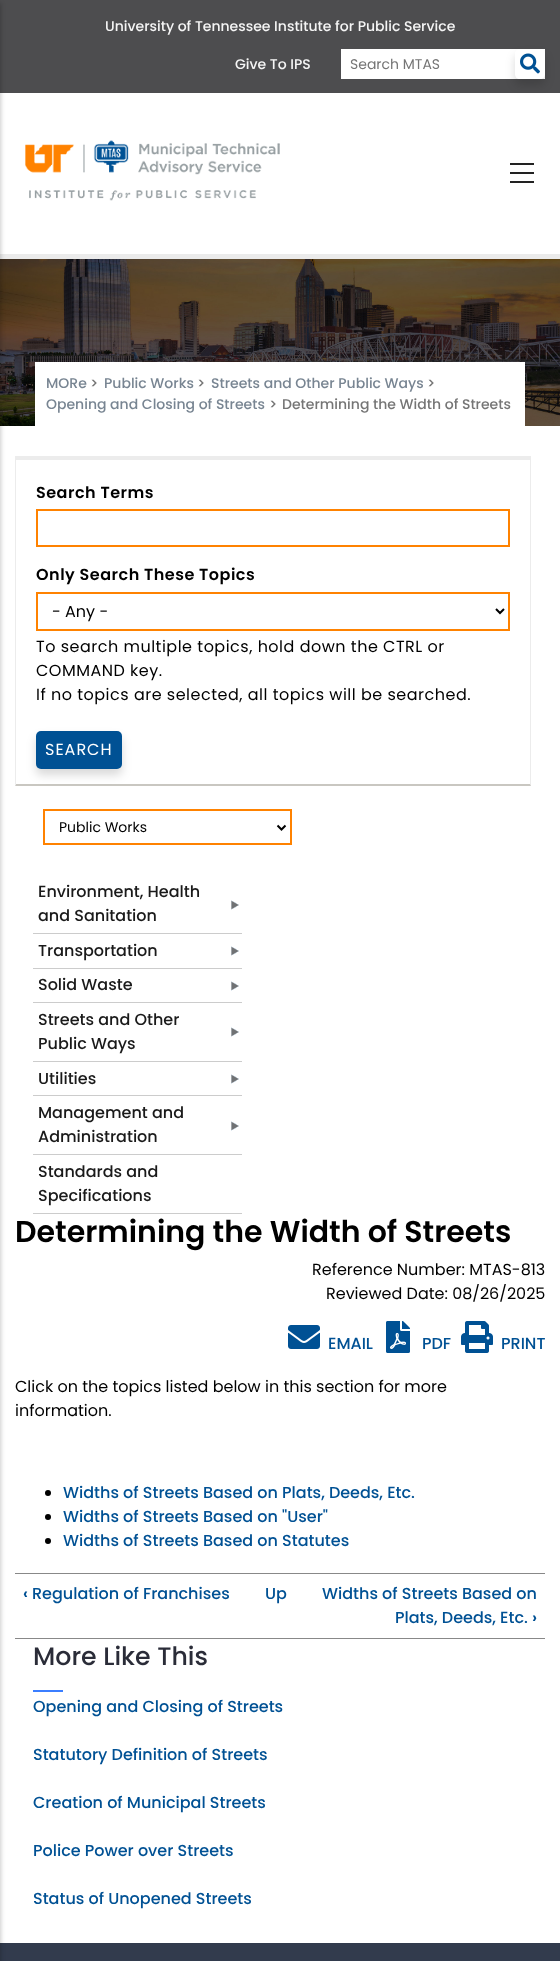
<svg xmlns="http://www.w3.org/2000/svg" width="560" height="1961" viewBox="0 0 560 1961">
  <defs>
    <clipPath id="clip1"><path d="M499 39H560V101H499ZM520 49H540C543 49 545 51 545 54V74C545 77 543 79 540 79H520C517 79 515 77 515 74V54C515 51 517 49 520 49Z" clip-rule="evenodd"/></clipPath>
  </defs>
  <rect width="100%" height="100%" fill="rgb(255,255,255)"/>
  <rect x="0" y="254" width="560" height="5" fill="rgb(235,235,235)"/>
  <rect x="0" y="0" width="560" height="93" fill="rgb(77,77,79)"/>
  <image x="0" y="259" width="560" height="167" href="pic3.png"/>
  <rect x="0" y="1943" width="560" height="18" fill="rgb(50,59,77)"/>
  <rect x="-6" y="3" width="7" height="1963" fill="rgba(0,0,0,0.2)" filter="blur(2px)"/>
  <rect x="510" y="163" width="24" height="2" fill="rgb(34,34,34)"/>
  <rect x="510" y="172" width="24" height="2" fill="rgb(34,34,34)"/>
  <rect x="510" y="181" width="24" height="2" fill="rgb(34,34,34)"/>
  <image x="25" y="140" width="255" height="61" href="pic1.png"/>
  <g font-family="Poppins" font-size="14" font-weight="500" fill="rgb(245,245,245)">
    <text x="105" y="31">University of Tennessee Institute for Public Service</text>
    <text x="235" y="69">Give To IPS</text>
  </g>
  <rect x="341" y="49" width="204" height="30" fill="rgb(255,255,255)"/>
  <text x="350" y="69" font-family="Poppins" font-size="14" fill="rgb(117,117,117)">Search MTAS</text>
  <image x="520" y="53" width="20" height="21" href="pic2.png"/>
  <g clip-path="url(#clip1)">
    <rect x="515" y="55" width="30" height="30" rx="5" fill="rgba(0,0,0,0.15)" filter="blur(5px)"/>
  </g>
  <rect x="35" y="362" width="490" height="64" fill="rgb(255,255,255)"/>
  <text x="46" y="388" font-family="Poppins" font-size="14" font-weight="500" fill="rgb(120,133,146)">MORe</text>
  <text x="90" y="388" font-family="Poppins" font-size="14" font-weight="500" fill="rgb(117,117,117)">&gt;</text>
  <text x="104" y="388" font-family="Poppins" font-size="14" font-weight="500" fill="rgb(120,133,146)">Public Works</text>
  <text x="197" y="388" font-family="Poppins" font-size="14" font-weight="500" fill="rgb(117,117,117)">&gt;</text>
  <text x="211" y="388" font-family="Poppins" font-size="14" font-weight="500" fill="rgb(120,133,146)">Streets and Other Public Ways</text>
  <text x="427" y="388" font-family="Poppins" font-size="14" font-weight="500" fill="rgb(117,117,117)">&gt;</text>
  <text x="46" y="409" font-family="Poppins" font-size="14" font-weight="500" fill="rgb(120,133,146)">Opening and Closing of Streets</text>
  <g font-family="Poppins" font-size="14" font-weight="500" fill="rgb(117,117,117)">
    <text x="269" y="409">&gt;</text>
    <text x="282" y="409">Determining the Width of Streets</text>
  </g>
  <rect x="15" y="456" width="516" height="4" fill="rgb(236,236,236)"/>
  <path d="M531 456V786L530 784V460Z" fill="rgb(236,236,236)"/>
  <path d="M531 786H15L16 784H530Z" fill="rgb(201,199,193)"/>
  <path d="M15 786V456L16 460V784Z" fill="rgb(236,236,236)"/>
  <text x="36" y="498" font-family="Poppins" font-size="16" font-weight="600" letter-spacing="0.5" fill="rgb(0,0,0)">Search Terms</text>
  <rect x="37" y="510" width="472" height="36" fill="none" stroke="rgb(255,130,0)" stroke-width="2"/>
  <text x="36" y="580" font-family="Poppins" font-size="16" font-weight="600" letter-spacing="0.5" fill="rgb(0,0,0)">Only Search These Topics</text>
  <rect x="37" y="593" width="472" height="37" fill="none" stroke="rgb(255,130,0)" stroke-width="2"/>
  <path d="M496 609L500 613L504 609" fill="none" stroke="rgb(0,0,0)" stroke-width="2"/>
  <text x="52" y="617" font-family="Poppins" font-size="16" fill="rgb(0,0,0)">- Any -</text>
  <g font-family="Poppins" font-size="16" letter-spacing="0.5" fill="rgb(0,0,0)">
    <text>
      <tspan x="36" y="652">To search multiple topics, hold down the CTRL or</tspan>
      <tspan x="36" y="676">COMMAND key.</tspan>
      <tspan x="36" y="700">If no topics are selected, all topics will be searched.</tspan>
    </text>
  </g>
  <rect x="36" y="737" width="86" height="38" rx="5" fill="rgba(0,0,0,0.15)" filter="blur(5px)"/>
  <rect x="36" y="731" width="86" height="38" rx="5" fill="rgb(0,81,148)"/>
  <text x="45" y="755" font-family="Poppins" font-size="16" letter-spacing="1" fill="rgb(255,255,255)">SEARCH</text>
  <rect x="44" y="810" width="247" height="34" fill="none" stroke="rgb(255,130,0)" stroke-width="2"/>
  <path d="M277.5 825.5L281.5 829.5L285.5 825.5" fill="none" stroke="rgb(0,0,0)" stroke-width="2"/>
  <text x="59" y="832" font-family="Poppins" font-size="14" fill="rgb(0,0,0)">Public Works</text>
  <image x="231" y="900" width="8" height="10" href="pic4.png"/>
  <rect x="33" y="933" width="209" height="1" fill="rgb(204,204,204)"/>
  <g font-family="Poppins" font-size="16" font-weight="500" fill="rgb(26,26,26)">
    <text>
      <tspan x="38" y="897">Environment, Health</tspan>
      <tspan x="38" y="921">and Sanitation</tspan>
    </text>
  </g>
  <image x="231" y="946" width="8" height="10" href="pic4.png"/>
  <rect x="33" y="968" width="209" height="1" fill="rgb(204,204,204)"/>
  <text x="38" y="956" font-family="Poppins" font-size="16" font-weight="500" fill="rgb(26,26,26)">Transportation</text>
  <image x="231" y="981" width="8" height="10" href="pic4.png"/>
  <rect x="33" y="1002" width="209" height="1" fill="rgb(204,204,204)"/>
  <text x="38" y="990" font-family="Poppins" font-size="16" font-weight="500" fill="rgb(26,26,26)">Solid Waste</text>
  <image x="231" y="1027" width="8" height="10" href="pic4.png"/>
  <rect x="33" y="1061" width="209" height="1" fill="rgb(204,204,204)"/>
  <g font-family="Poppins" font-size="16" font-weight="500" fill="rgb(26,26,26)">
    <text>
      <tspan x="38" y="1025">Streets and Other</tspan>
      <tspan x="38" y="1049">Public Ways</tspan>
    </text>
  </g>
  <image x="231" y="1074" width="8" height="10" href="pic4.png"/>
  <rect x="33" y="1095" width="209" height="1" fill="rgb(204,204,204)"/>
  <text x="38" y="1084" font-family="Poppins" font-size="16" font-weight="500" fill="rgb(26,26,26)">Utilities</text>
  <image x="231" y="1121" width="8" height="10" href="pic4.png"/>
  <rect x="33" y="1154" width="209" height="1" fill="rgb(204,204,204)"/>
  <g font-family="Poppins" font-size="16" font-weight="500" fill="rgb(26,26,26)">
    <text>
      <tspan x="38" y="1118">Management and</tspan>
      <tspan x="38" y="1142">Administration</tspan>
    </text>
  </g>
  <rect x="33" y="1213" width="209" height="1" fill="rgb(204,204,204)"/>
  <g font-family="Poppins" font-size="16" font-weight="500" fill="rgb(26,26,26)">
    <text>
      <tspan x="38" y="1177">Standards and</tspan>
      <tspan x="38" y="1201">Specifications</tspan>
    </text>
  </g>
  <text x="15" y="1242" font-family="Poppins" font-size="30" font-weight="600" fill="rgb(0,0,0)">Determining the Width of Streets</text>
  <g font-family="Poppins" font-size="16" fill="rgb(0,0,0)">
    <text x="312" y="1275">Reference Number: MTAS-813</text>
    <text x="326" y="1299">Reviewed Date: 08/26/2025</text>
  </g>
  <image x="288" y="1325" width="32" height="24" href="pic5.png"/>
  <text x="328" y="1349" font-family="Poppins" font-size="16" font-weight="500" fill="rgb(0,81,148)">EMAIL</text>
  <image x="386" y="1321" width="24" height="32" href="pic6.png"/>
  <text x="422" y="1349" font-family="Poppins" font-size="16" font-weight="500" fill="rgb(0,81,148)">PDF</text>
  <image x="461" y="1321" width="32" height="32" href="pic7.png"/>
  <text x="501" y="1349" font-family="Poppins" font-size="16" font-weight="500" fill="rgb(0,81,148)">PRINT</text>
  <g font-family="Poppins" font-size="16" fill="rgb(0,0,0)">
    <text>
      <tspan x="15" y="1392">Click on the topics listed below in this section for more</tspan>
      <tspan x="15" y="1416">information.</tspan>
    </text>
  </g>
  <circle cx="48" cy="1493" r="3" fill="rgb(0,0,0)"/>
  <text x="63" y="1498" font-family="Poppins" font-size="16" font-weight="500" fill="rgb(0,81,148)">Widths of Streets Based on Plats, Deeds, Etc.</text>
  <circle cx="48" cy="1517" r="3" fill="rgb(0,0,0)"/>
  <text x="63" y="1522" font-family="Poppins" font-size="16" font-weight="500" fill="rgb(0,81,148)">Widths of Streets Based on "User"</text>
  <circle cx="48" cy="1541" r="3" fill="rgb(0,0,0)"/>
  <text x="63" y="1546" font-family="Poppins" font-size="16" font-weight="500" fill="rgb(0,81,148)">Widths of Streets Based on Statutes</text>
  <rect x="15" y="1573" width="530" height="1" fill="rgb(136,136,136)"/>
  <rect x="15" y="1638" width="530" height="1" fill="rgb(136,136,136)"/>
  <text x="23" y="1599" font-family="Poppins" font-size="16" font-weight="600" fill="rgb(0,81,148)">‹</text>
  <g font-family="Poppins" font-size="16" font-weight="500" fill="rgb(0,81,148)">
    <text x="32" y="1599">Regulation of Franchises</text>
    <text x="265" y="1599">Up</text>
    <text x="322" y="1599">Widths of Streets Based on</text>
    <text x="395" y="1623">Plats, Deeds, Etc.</text>
  </g>
  <text x="532" y="1623" font-family="Poppins" font-size="16" font-weight="600" fill="rgb(0,81,148)">›</text>
  <text x="33" y="1665" font-family="Poppins" font-size="25.25" font-weight="500" fill="rgb(42,44,56)">More Like This</text>
  <rect x="33" y="1690" width="30" height="2" fill="rgb(59,126,255)"/>
  <g font-family="Poppins" font-size="16" font-weight="500" fill="rgb(0,81,148)">
    <text x="33" y="1712">Opening and Closing of Streets</text>
    <text x="33" y="1760">Statutory Definition of Streets</text>
    <text x="33" y="1808">Creation of Municipal Streets</text>
    <text x="33" y="1856">Police Power over Streets</text>
    <text x="33" y="1904">Status of Unopened Streets</text>
  </g>
</svg>
